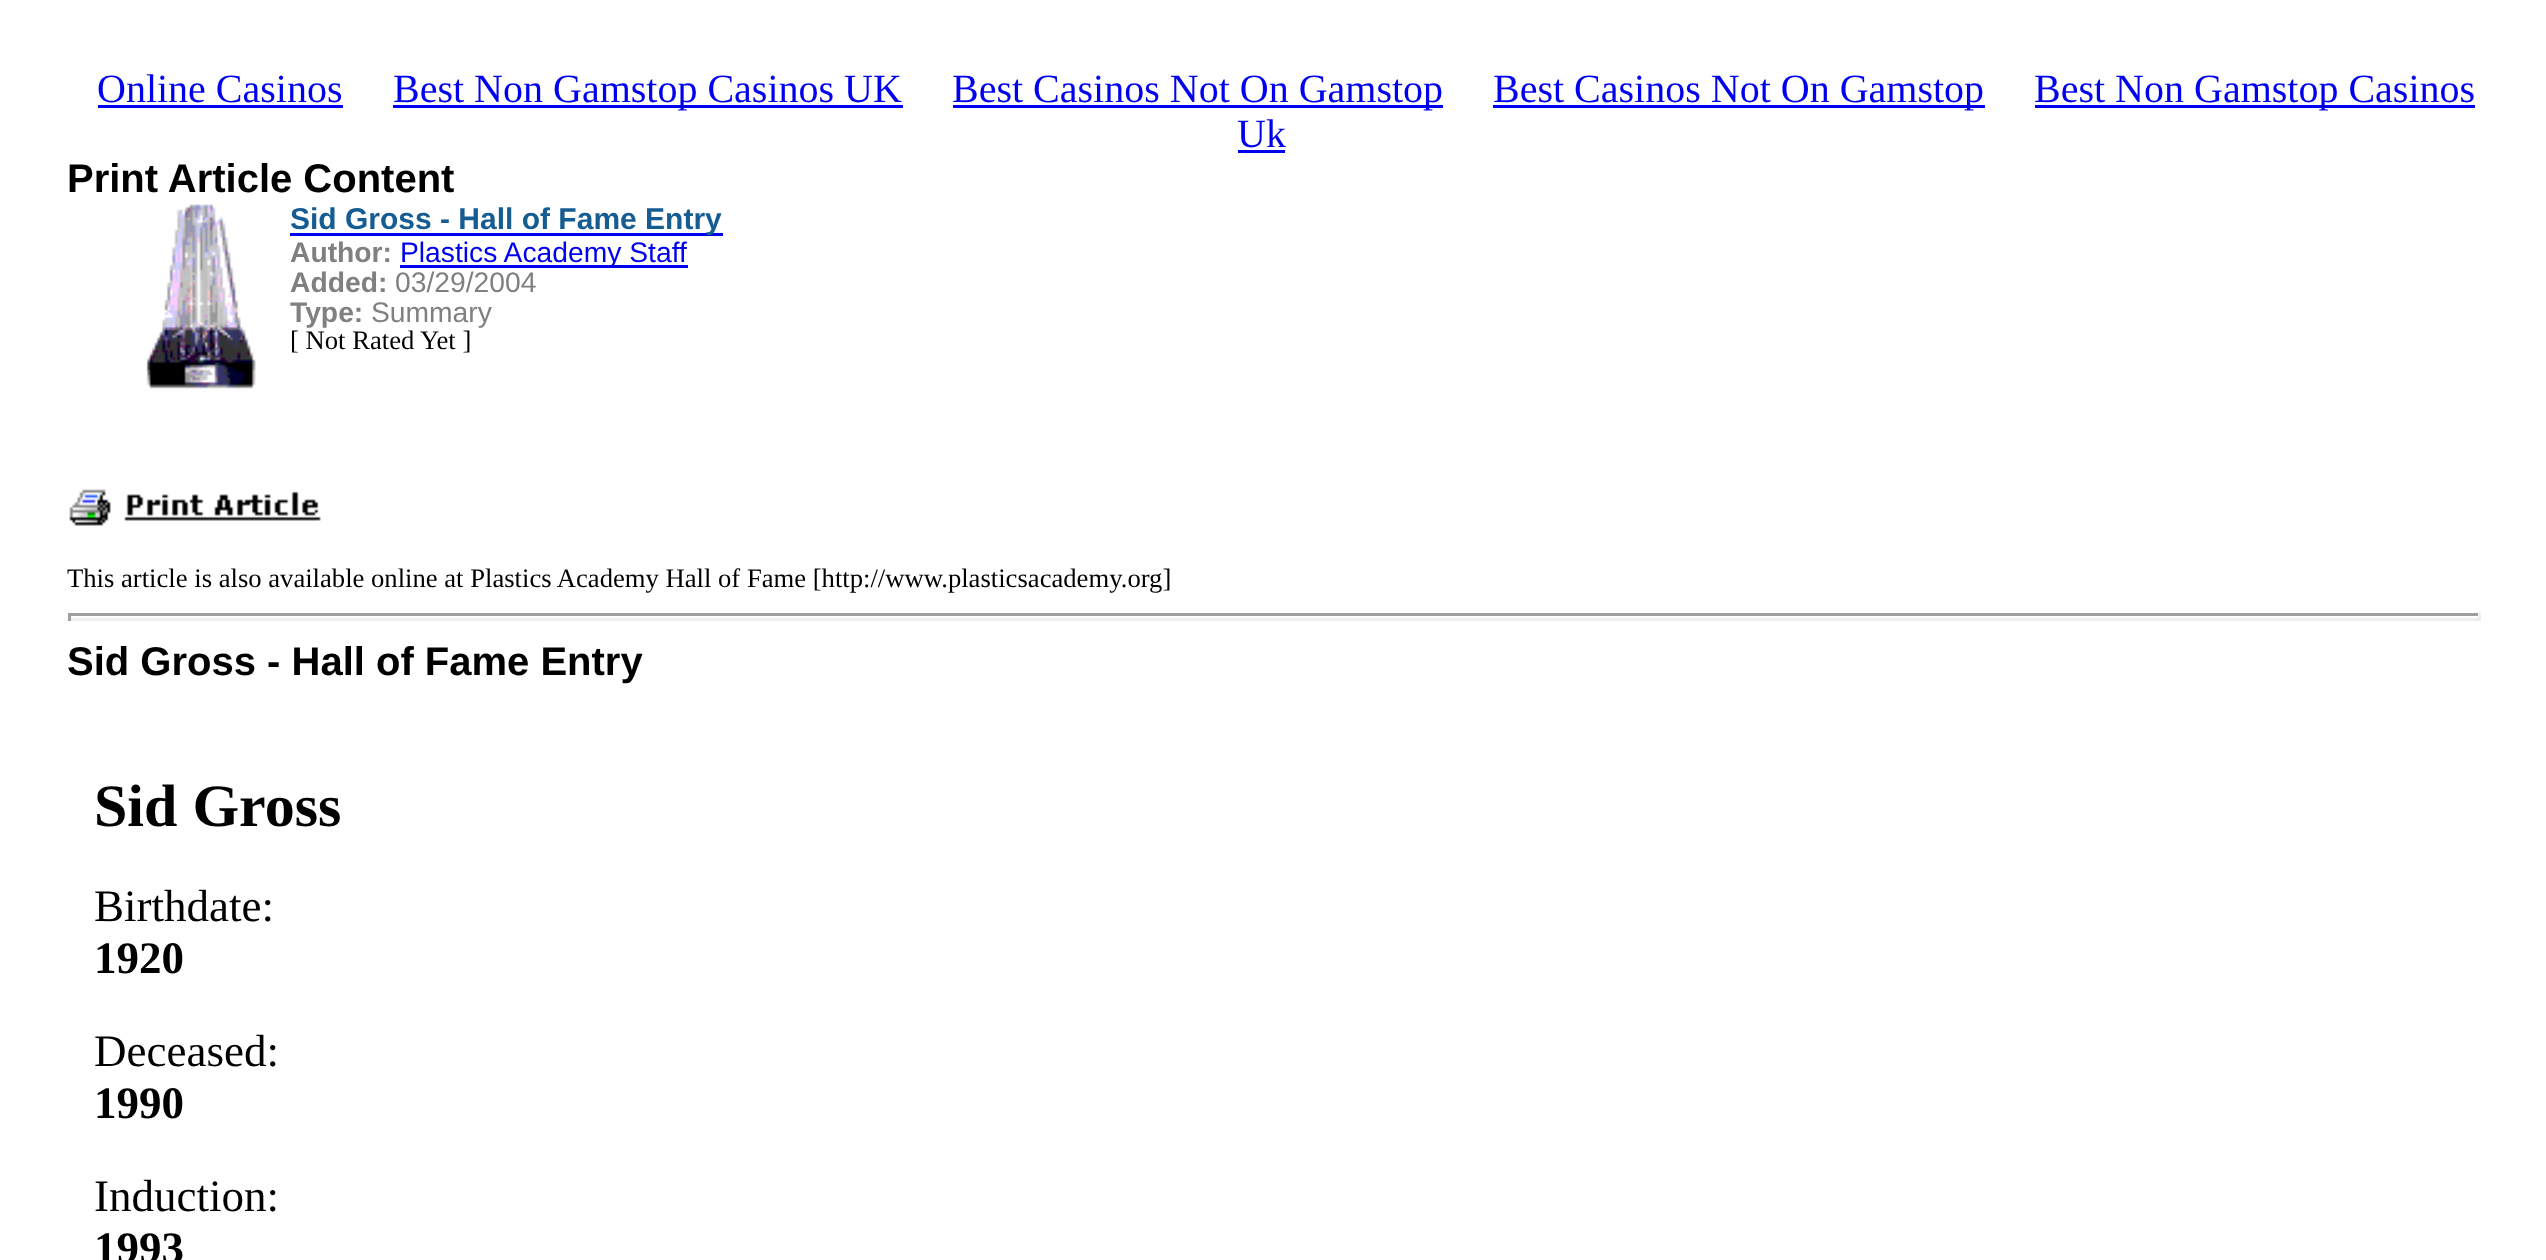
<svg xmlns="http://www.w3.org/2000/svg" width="2546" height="1260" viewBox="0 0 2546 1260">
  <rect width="100%" height="100%" fill="rgb(255,255,255)"/>
  <text x="97" y="102" font-family="Liberation Serif" font-size="40" fill="rgb(0,0,238)">Online Casinos</text>
  <rect x="98" y="105" width="245" height="3" fill="rgb(0,0,238)"/>
  <rect x="393" y="105" width="510" height="3" fill="rgb(0,0,238)"/>
  <text x="393" y="102" font-family="Liberation Serif" font-size="40" fill="rgb(0,0,238)">Best Non Gamstop Casinos UK</text>
  <rect x="953" y="105" width="490" height="3" fill="rgb(0,0,238)"/>
  <text x="952" y="102" font-family="Liberation Serif" font-size="40" fill="rgb(0,0,238)">Best Casinos Not On Gamstop</text>
  <rect x="1493" y="105" width="492" height="3" fill="rgb(0,0,238)"/>
  <text x="1493" y="102" font-family="Liberation Serif" font-size="40" fill="rgb(0,0,238)">Best Casinos Not On Gamstop</text>
  <rect x="2035" y="105" width="440" height="3" fill="rgb(0,0,238)"/>
  <g font-family="Liberation Serif" font-size="40" fill="rgb(0,0,238)">
    <text x="2034" y="102">Best Non Gamstop Casinos</text>
    <text x="1237" y="147">Uk</text>
  </g>
  <rect x="1238" y="150" width="47" height="3" fill="rgb(0,0,238)"/>
  <text x="67" y="192" font-family="Liberation Sans" font-size="40" font-weight="bold" fill="rgb(0,0,0)">Print Article Content</text>
  <image x="146" y="204" width="110" height="185" href="pic1.png"/>
  <rect x="290" y="233" width="433" height="3" fill="rgb(0,0,238)"/>
  <text x="290" y="229" font-family="Liberation Sans" font-size="30" font-weight="bold" fill="rgb(21,92,147)">Sid Gross - Hall of Fame Entry</text>
  <text x="290" y="262" font-family="Liberation Sans" font-size="28.25" font-weight="bold" fill="rgb(128,128,128)">Author:</text>
  <rect x="400" y="265" width="288" height="3" fill="rgb(0,0,238)"/>
  <text x="400" y="262" font-family="Liberation Sans" font-size="28.25" fill="rgb(0,0,238)">Plastics Academy Staff</text>
  <text x="290" y="292" font-family="Liberation Sans" font-size="28.25" font-weight="bold" fill="rgb(128,128,128)">Added:</text>
  <text x="395" y="292" font-family="Liberation Sans" font-size="28.25" fill="rgb(128,128,128)">03/29/2004</text>
  <text x="290" y="322" font-family="Liberation Sans" font-size="28.25" font-weight="bold" fill="rgb(128,128,128)">Type:</text>
  <text x="371" y="322" font-family="Liberation Sans" font-size="28.25" fill="rgb(128,128,128)">Summary</text>
  <text x="290" y="349" font-family="Liberation Serif" font-size="26.65" fill="rgb(0,0,0)">[ Not Rated Yet ]</text>
  <image x="69" y="489" width="252" height="37" href="pic2.png"/>
  <text x="67" y="587" font-family="Liberation Serif" font-size="26.65" fill="rgb(0,0,0)">This article is also available online at Plastics Academy Hall of Fame [http://www.plasticsacademy.org]</text>
  <rect x="68" y="613" width="2412" height="3" fill="rgb(159,159,159)"/>
  <rect x="2478" y="613" width="3" height="8" fill="rgb(238,238,238)"/>
  <rect x="68" y="618" width="2412" height="3" fill="rgb(238,238,238)"/>
  <rect x="68" y="613" width="3" height="8" fill="rgb(159,159,159)"/>
  <text x="67" y="675" font-family="Liberation Sans" font-size="40" font-weight="bold" fill="rgb(0,0,0)">Sid Gross - Hall of Fame Entry</text>
  <text x="94" y="826" font-family="Liberation Serif" font-size="60" font-weight="bold" fill="rgb(0,0,0)">Sid Gross</text>
  <text x="94" y="921" font-family="Liberation Serif" font-size="45" fill="rgb(0,0,0)">Birthdate:</text>
  <text x="94" y="973" font-family="Liberation Serif" font-size="45" font-weight="bold" fill="rgb(0,0,0)">1920</text>
  <text x="94" y="1066" font-family="Liberation Serif" font-size="45" fill="rgb(0,0,0)">Deceased:</text>
  <text x="94" y="1118" font-family="Liberation Serif" font-size="45" font-weight="bold" fill="rgb(0,0,0)">1990</text>
  <text x="94" y="1211" font-family="Liberation Serif" font-size="45" fill="rgb(0,0,0)">Induction:</text>
  <text x="94" y="1263" font-family="Liberation Serif" font-size="45" font-weight="bold" fill="rgb(0,0,0)">1993</text>
</svg>
